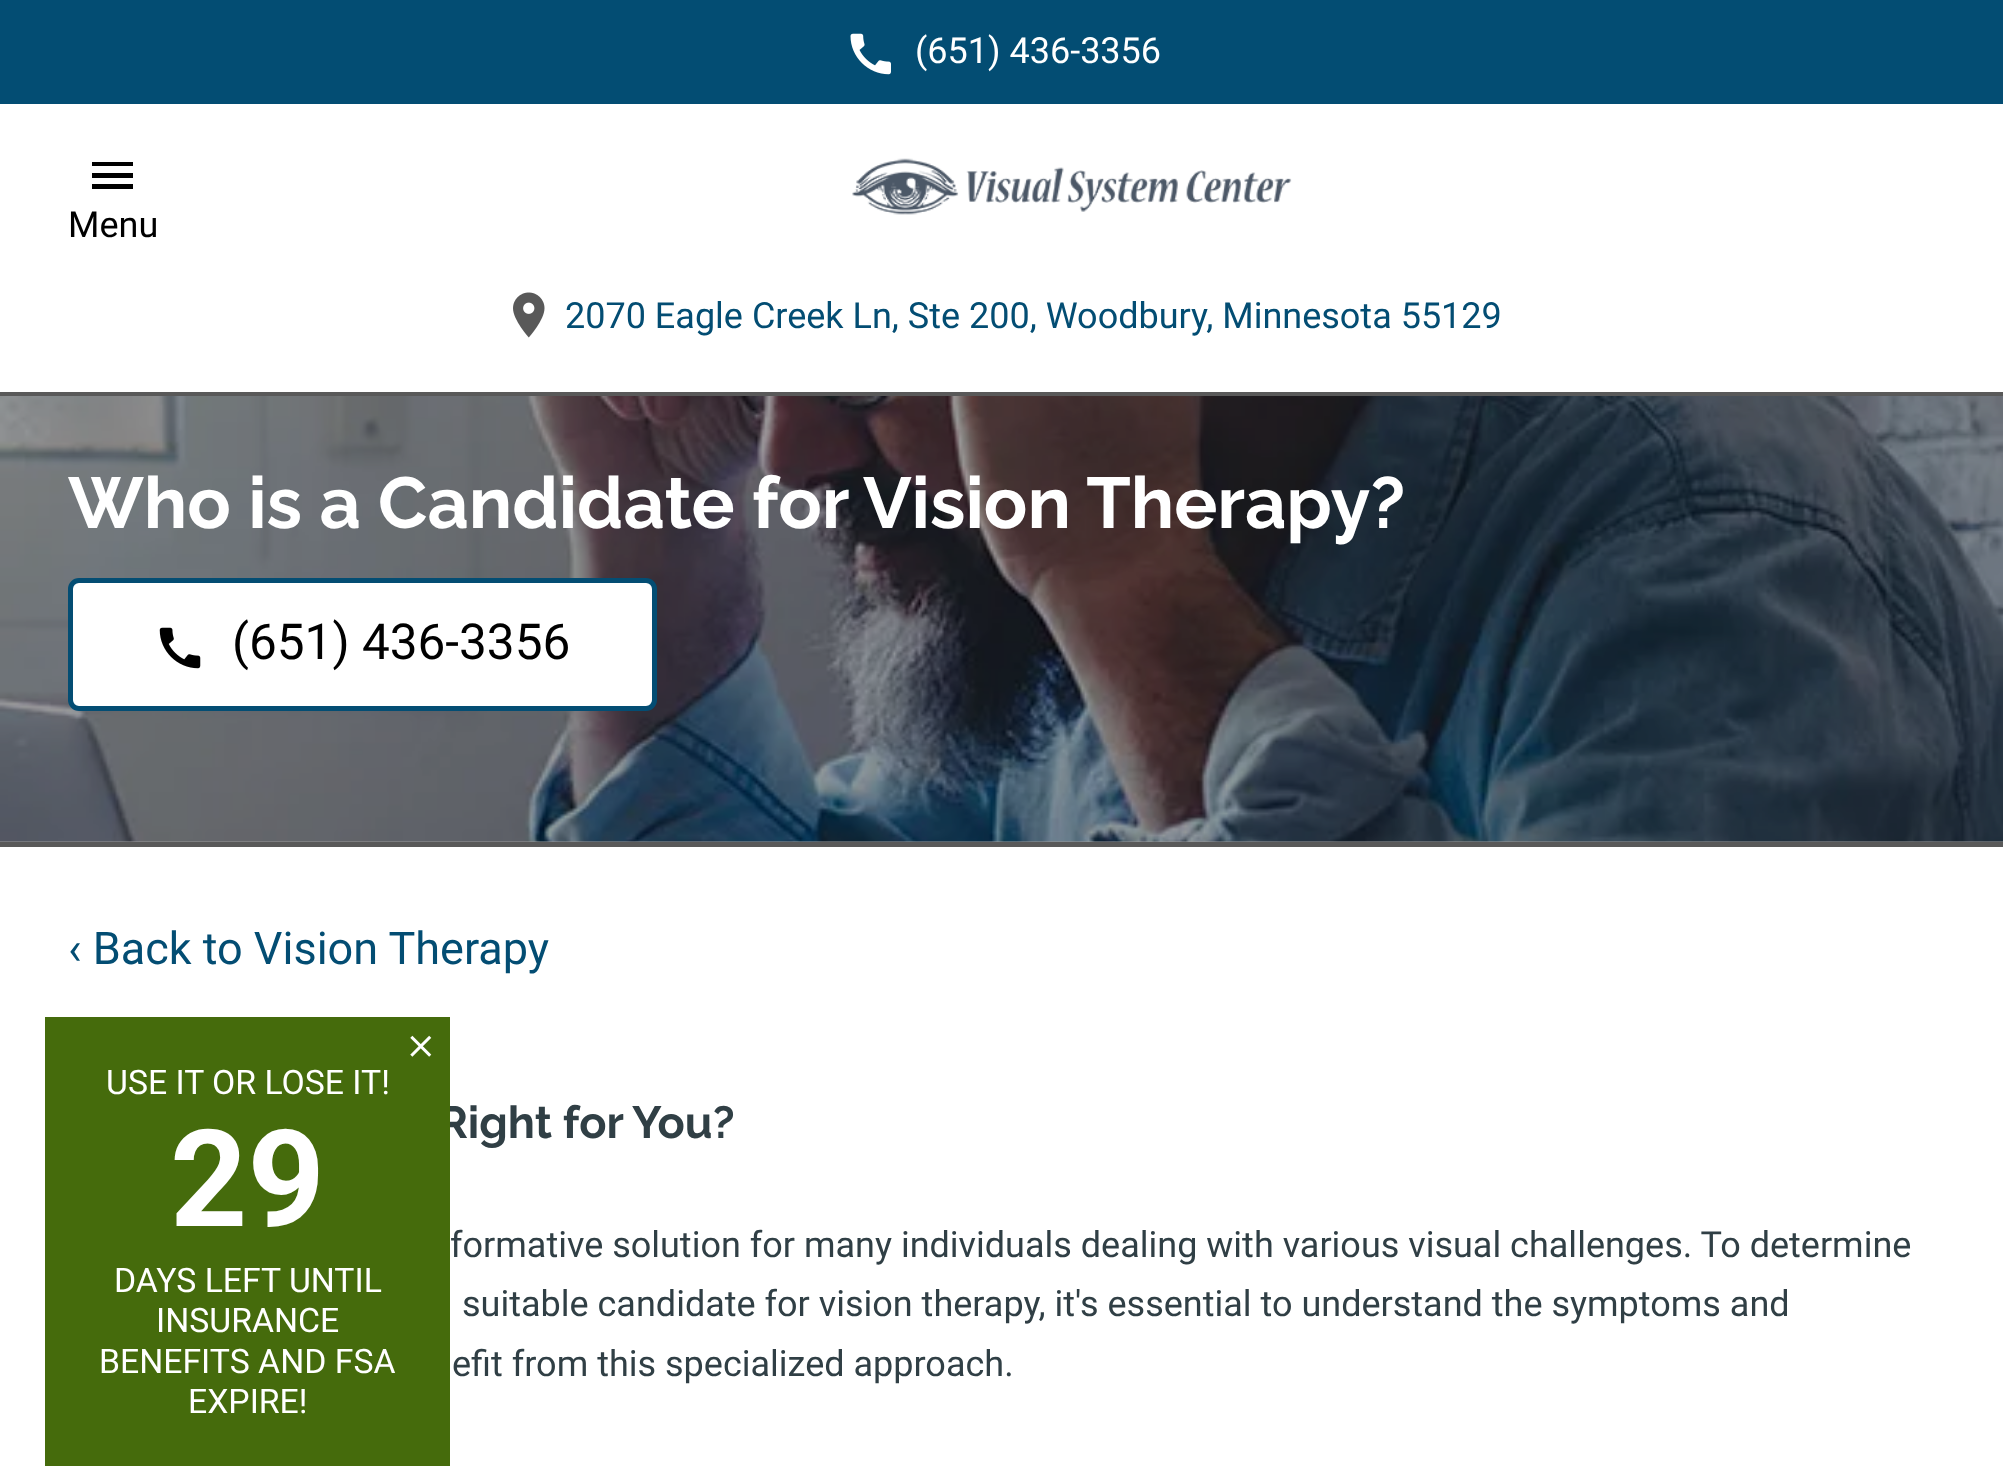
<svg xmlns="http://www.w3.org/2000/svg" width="2003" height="1466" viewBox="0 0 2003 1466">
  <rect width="100%" height="100%" fill="rgb(255,255,255)"/>
  <rect x="0" y="841" width="2003" height="1" fill="rgb(153,153,153)"/>
  <rect x="0" y="0" width="2003" height="104" fill="rgb(3,77,115)"/>
  <image x="850" y="33" width="41" height="42" href="pic1.png"/>
  <text x="915" y="63" font-family="Roboto" font-size="36" fill="rgb(255,255,255)">(651) 436-3356</text>
  <rect x="0" y="392" width="2003" height="4" fill="rgb(89,89,89)"/>
  <image x="852" y="158" width="440" height="57" href="pic2.png"/>
  <path d="M92 189H133V184H92ZM92 178H133V173H92ZM92 162V166H133V162Z" fill="rgb(0,0,0)"/>
  <text x="68" y="237" font-family="Roboto" font-size="36" fill="rgb(0,0,0)">Menu</text>
  <image x="513" y="292" width="32" height="46" href="pic3.png"/>
  <text x="565" y="328" font-family="Roboto" font-size="36" fill="rgb(3,77,115)">2070 Eagle Creek Ln, Ste 200, Woodbury, Minnesota 55129</text>
  <rect x="0" y="842" width="2003" height="5" fill="rgb(89,89,89)"/>
  <image x="0" y="396" width="2003" height="446" href="pic4.png"/>
  <text x="68" y="528" font-family="Raleway" font-size="72" font-weight="bold" fill="rgb(255,255,255)">Who is a Candidate for Vision Therapy?</text>
  <rect x="70.5" y="580.5" width="584" height="128" rx="8.5" fill="rgb(255,255,255)" stroke="rgb(3,77,115)" stroke-width="5"/>
  <image x="159" y="627" width="42" height="42" href="pic5.png"/>
  <text x="232" y="659" font-family="Roboto" font-size="49.5" fill="rgb(0,0,0)">(651) 436-3356</text>
  <text x="68" y="964" font-family="Roboto" font-size="45" fill="rgb(3,77,115)">‹ Back to Vision Therapy</text>
  <text x="438" y="1138" font-family="Raleway" font-size="45" font-weight="bold" fill="rgb(48,63,69)">Right for You?</text>
  <g font-family="Roboto" font-size="36" fill="rgb(48,63,69)">
    <text x="450" y="1257">formative solution for many individuals dealing with various visual challenges. To determine</text>
    <text x="462" y="1316">suitable candidate for vision therapy, it's essential to understand the symptoms and</text>
    <text x="452" y="1376">efit from this specialized approach.</text>
  </g>
  <rect x="45" y="1017" width="405" height="449" fill="rgb(69,107,12)"/>
  <image x="410" y="1035" width="22" height="22" href="pic6.png"/>
  <text x="106" y="1094" font-family="Roboto" font-size="33.75" fill="rgb(255,255,255)">USE IT OR LOSE IT!</text>
  <text x="170" y="1226" font-family="Roboto" font-size="135" font-weight="bold" fill="rgb(255,255,255)">29</text>
  <g font-family="Roboto" font-size="33.75" fill="rgb(255,255,255)">
    <text x="114" y="1292">DAYS LEFT UNTIL</text>
    <text x="156" y="1332">INSURANCE</text>
    <text x="99" y="1373">BENEFITS AND FSA</text>
    <text x="188" y="1413">EXPIRE!</text>
  </g>
</svg>
